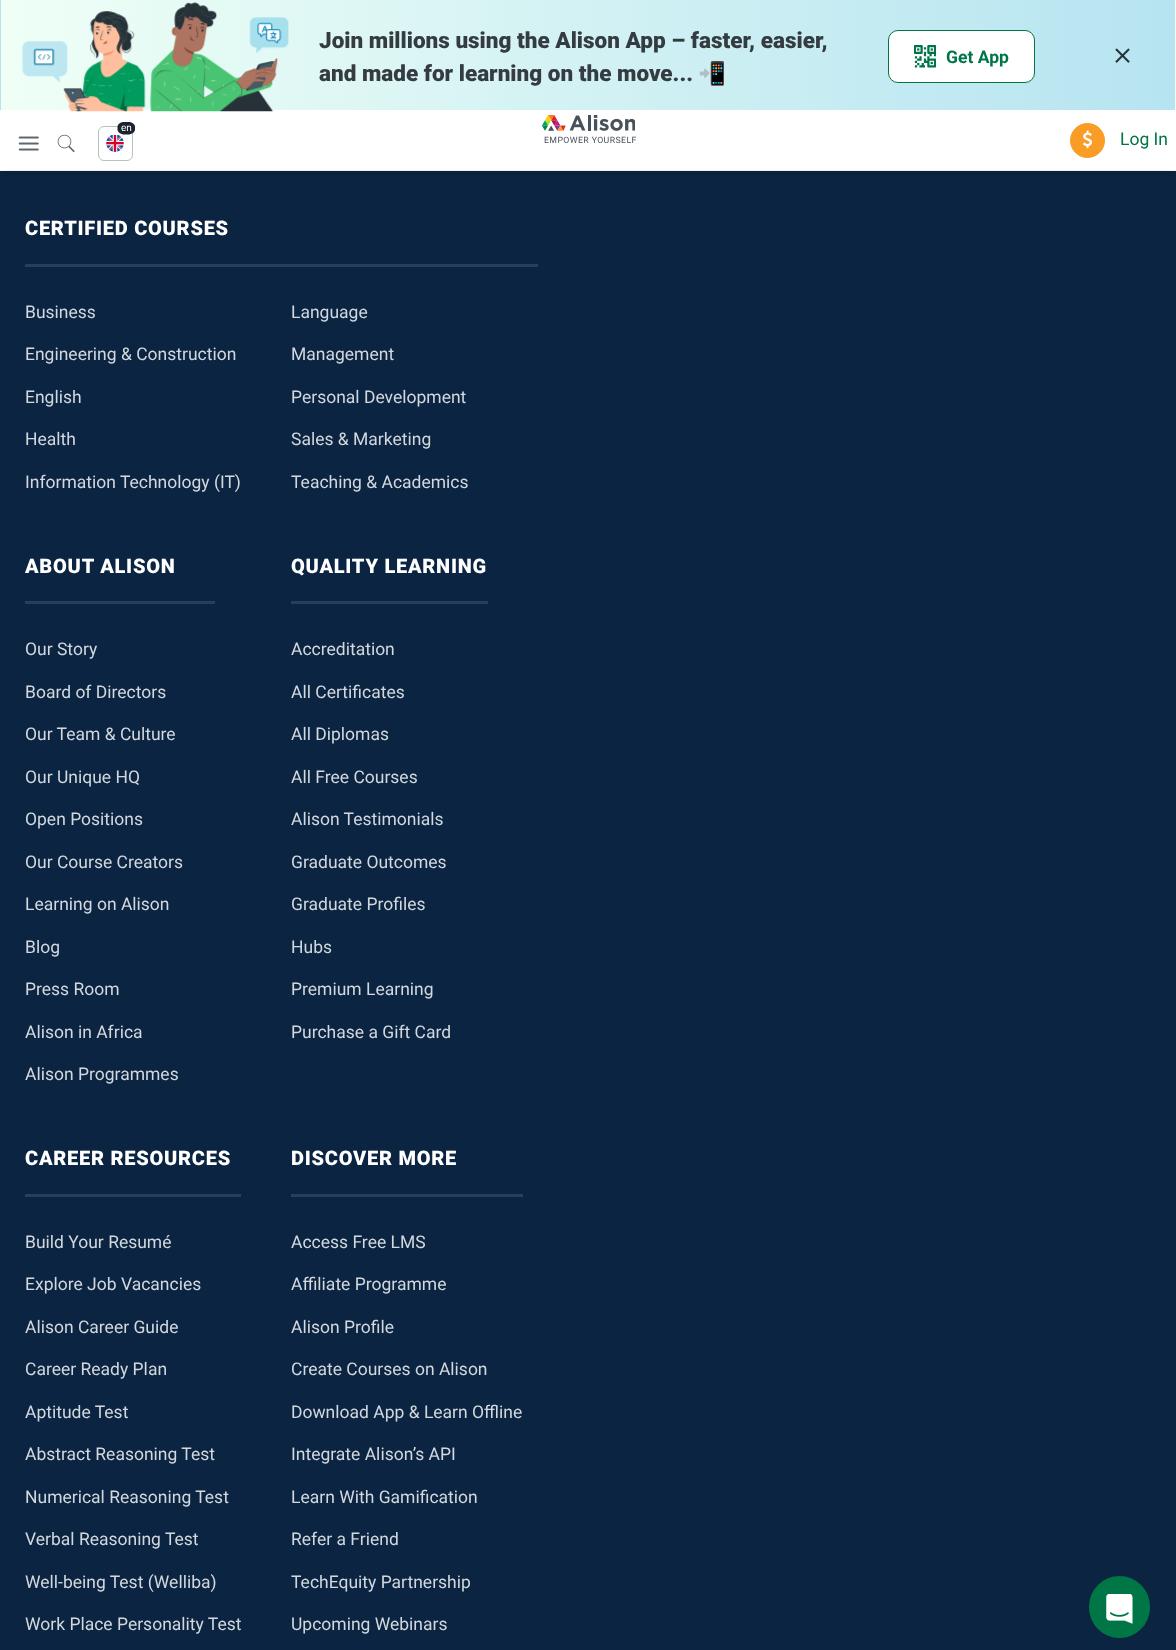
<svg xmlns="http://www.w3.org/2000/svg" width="1176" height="1650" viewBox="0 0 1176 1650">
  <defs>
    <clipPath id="clip1"><rect x="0" y="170" width="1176" height="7"/></clipPath>
    <linearGradient id="g1" gradientUnits="userSpaceOnUse" x1="-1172" y1="55" x2="1.2" y2="55"><stop offset="0" stop-color="rgb(239,255,246)"/><stop offset="1" stop-color="rgb(182,228,241)"/></linearGradient>
    <linearGradient id="g2" gradientUnits="userSpaceOnUse" x1="1.2" y1="55" x2="1175" y2="55"><stop offset="0" stop-color="rgb(239,255,246)"/><stop offset="1" stop-color="rgb(182,228,241)"/></linearGradient>
  </defs>
  <rect width="100%" height="100%" fill="rgb(255,255,255)"/>
  <rect x="0" y="171" width="1176" height="1479" fill="rgb(11,36,65)"/>
  <g clip-path="url(#clip1)">
    <rect x="0" y="114" width="1176" height="60" fill="rgba(0,0,0,0.08)" filter="blur(4px)"/>
  </g>
  <rect x="1175" y="0" width="1" height="110" fill="rgb(239,255,246)"/>
  <rect x="0" y="0" width="1" height="110" fill="url(#g1)"/>
  <rect x="1" y="0" width="1174" height="110" fill="url(#g2)"/>
  <image x="22" y="2" width="267" height="110" href="pic1.png"/>
  <g font-family="Roboto" font-size="22.5" font-weight="900" fill="rgb(52,60,65)">
    <text>
      <tspan x="319" y="48">Join millions using the Alison App – faster, easier,</tspan>
      <tspan x="319" y="81">and made for learning on the move...</tspan>
    </text>
  </g>
  <text x="698" y="81" font-family="Noto Color Emoji" font-size="22.5" font-weight="bold" fill="rgb(52,60,65)">📲</text>
  <rect x="888.5" y="30.5" width="146" height="52" rx="9.5" fill="rgb(255,255,255)" stroke="rgb(0,118,70)"/>
  <image x="914" y="45" width="22" height="23" href="pic2.png"/>
  <text x="946" y="63" font-family="Roboto" font-size="17.5" font-weight="bold" fill="rgb(0,118,70)">Get App</text>
  <image x="1115" y="48" width="15" height="15" href="pic3.png"/>
  <rect x="98.5" y="126.5" width="34" height="34" rx="5.5" fill="none" stroke="rgb(179,194,188)"/>
  <path d="M124.5 122H128C132 122 135 124 135 127V129.5C135 132 132 134.5 128 134.5H124.5C120.5 134.5 117.5 132 117.5 129.5V127C117.5 124 120.5 122 124.5 122Z" fill="rgb(28,35,46)"/>
  <text x="121" y="131" font-family="Roboto" font-size="10" fill="rgb(255,255,255)">en</text>
  <image x="106" y="135" width="18" height="17" href="pic4.png"/>
  <image x="18" y="136" width="21" height="15" href="pic5.png"/>
  <image x="57" y="134" width="18" height="19" href="pic6.png"/>
  <image x="542" y="115" width="93" height="16" href="pic7.png"/>
  <text x="544" y="143" font-family="Roboto" font-size="8.75" letter-spacing="0.4" fill="rgb(70,81,89)">EMPOWER YOURSELF</text>
  <circle cx="1087.5" cy="140.5" r="17" fill="rgb(249,157,39)" stroke="rgb(249,157,39)"/>
  <image x="1083" y="130" width="9" height="19" href="pic8.png"/>
  <text x="1120" y="145" font-family="Roboto" font-size="17.5" fill="rgb(0,118,70)">Log In</text>
  <rect x="25" y="264" width="513" height="3" fill="rgb(40,62,90)"/>
  <text x="25" y="235" font-family="Roboto" font-size="20" font-weight="900" letter-spacing="0.75" fill="rgb(255,255,255)">CERTIFIED COURSES</text>
  <g font-family="Roboto" font-size="17.5" fill="rgb(210,216,222)">
    <text x="25" y="318">Business</text>
    <text x="291" y="318">Language</text>
    <text x="25" y="360">Engineering &amp; Construction</text>
    <text x="291" y="360">Management</text>
    <text x="25" y="403">English</text>
    <text x="291" y="403">Personal Development</text>
    <text x="25" y="445">Health</text>
    <text x="291" y="445">Sales &amp; Marketing</text>
    <text x="25" y="488">Information Technology (IT)</text>
    <text x="291" y="488">Teaching &amp; Academics</text>
  </g>
  <rect x="25" y="601" width="190" height="3" fill="rgb(40,62,90)"/>
  <text x="25" y="573" font-family="Roboto" font-size="20" font-weight="900" letter-spacing="0.75" fill="rgb(255,255,255)">ABOUT ALISON</text>
  <g font-family="Roboto" font-size="17.5" fill="rgb(210,216,222)">
    <text x="25" y="655">Our Story</text>
    <text x="25" y="698">Board of Directors</text>
    <text x="25" y="740">Our Team &amp; Culture</text>
    <text x="25" y="783">Our Unique HQ</text>
    <text x="25" y="825">Open Positions</text>
    <text x="25" y="868">Our Course Creators</text>
    <text x="25" y="910">Learning on Alison</text>
    <text x="25" y="953">Blog</text>
    <text x="25" y="995">Press Room</text>
    <text x="25" y="1038">Alison in Africa</text>
    <text x="25" y="1080">Alison Programmes</text>
  </g>
  <rect x="291" y="601" width="197" height="3" fill="rgb(40,62,90)"/>
  <text x="291" y="573" font-family="Roboto" font-size="20" font-weight="900" letter-spacing="0.75" fill="rgb(255,255,255)">QUALITY LEARNING</text>
  <g font-family="Roboto" font-size="17.5" fill="rgb(210,216,222)">
    <text x="291" y="655">Accreditation</text>
    <text x="291" y="698">All Certificates</text>
    <text x="291" y="740">All Diplomas</text>
    <text x="291" y="783">All Free Courses</text>
    <text x="291" y="825">Alison Testimonials</text>
    <text x="291" y="868">Graduate Outcomes</text>
    <text x="291" y="910">Graduate Profiles</text>
    <text x="291" y="953">Hubs</text>
    <text x="291" y="995">Premium Learning</text>
    <text x="291" y="1038">Purchase a Gift Card</text>
  </g>
  <rect x="25" y="1194" width="216" height="3" fill="rgb(40,62,90)"/>
  <text x="25" y="1165" font-family="Roboto" font-size="20" font-weight="900" letter-spacing="0.75" fill="rgb(255,255,255)">CAREER RESOURCES</text>
  <g font-family="Roboto" font-size="17.5" fill="rgb(210,216,222)">
    <text x="25" y="1248">Build Your Resumé</text>
    <text x="25" y="1290">Explore Job Vacancies</text>
    <text x="25" y="1333">Alison Career Guide</text>
    <text x="25" y="1375">Career Ready Plan</text>
    <text x="25" y="1418">Aptitude Test</text>
    <text x="25" y="1460">Abstract Reasoning Test</text>
    <text x="25" y="1503">Numerical Reasoning Test</text>
    <text x="25" y="1545">Verbal Reasoning Test</text>
    <text x="25" y="1588">Well-being Test (Welliba)</text>
    <text x="25" y="1630">Work Place Personality Test</text>
  </g>
  <rect x="291" y="1194" width="232" height="3" fill="rgb(40,62,90)"/>
  <text x="291" y="1165" font-family="Roboto" font-size="20" font-weight="900" letter-spacing="0.75" fill="rgb(255,255,255)">DISCOVER MORE</text>
  <g font-family="Roboto" font-size="17.5" fill="rgb(210,216,222)">
    <text x="291" y="1248">Access Free LMS</text>
    <text x="291" y="1290">Affiliate Programme</text>
    <text x="291" y="1333">Alison Profile</text>
    <text x="291" y="1375">Create Courses on Alison</text>
    <text x="291" y="1418">Download App &amp; Learn Offline</text>
    <text x="291" y="1460">Integrate Alison’s API</text>
    <text x="291" y="1503">Learn With Gamification</text>
    <text x="291" y="1545">Refer a Friend</text>
    <text x="291" y="1588">TechEquity Partnership</text>
    <text x="291" y="1630">Upcoming Webinars</text>
  </g>
  <rect x="1089" y="1576" width="61" height="62" rx="30.5" fill="rgb(0,118,70)"/>
  <image x="1106" y="1594" width="27" height="30" href="pic9.png"/>
</svg>
